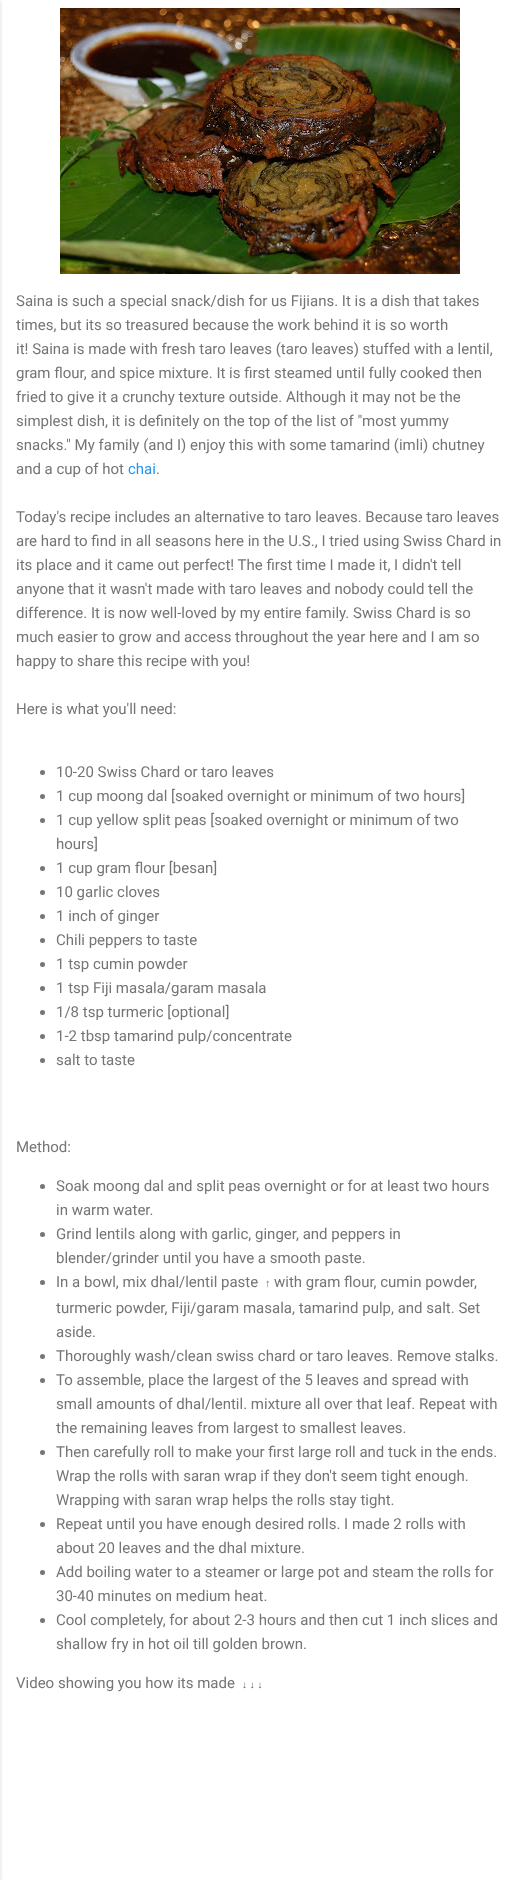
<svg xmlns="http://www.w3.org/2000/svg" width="520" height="1880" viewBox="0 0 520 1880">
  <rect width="100%" height="100%" fill="rgb(255,255,255)"/>
  <rect x="-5" y="1" width="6" height="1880" fill="rgba(0,0,0,0.1)" filter="blur(1.5px)"/>
  <image x="60" y="8" width="400" height="266" href="pic1.png"/>
  <g font-family="Roboto" font-size="15" fill="rgb(117,117,117)">
    <text>
      <tspan x="16" y="306">Saina is such a special snack/dish for us Fijians. It is a dish that takes</tspan>
      <tspan x="16" y="330">times, but its so treasured because the work behind it is so worth</tspan>
      <tspan x="16" y="354">it! Saina is made with fresh taro leaves (taro leaves) stuffed with a lentil,</tspan>
      <tspan x="16" y="378">gram flour, and spice mixture. It is first steamed until fully cooked then</tspan>
      <tspan x="16" y="402">fried to give it a crunchy texture outside. Although it may not be the</tspan>
      <tspan x="16" y="426">simplest dish, it is definitely on the top of the list of "most yummy</tspan>
      <tspan x="16" y="450">snacks." My family (and I) enjoy this with some tamarind (imli) chutney</tspan>
      <tspan x="16" y="474">and a cup of hot</tspan>
    </text>
  </g>
  <text x="128" y="474" font-family="Roboto" font-size="15" fill="rgb(33,150,243)">chai</text>
  <g font-family="Roboto" font-size="15" fill="rgb(117,117,117)">
    <text x="156" y="474">.</text>
    <text>
      <tspan x="16" y="522">Today's recipe includes an alternative to taro leaves. Because taro leaves</tspan>
      <tspan x="16" y="546">are hard to find in all seasons here in the U.S., I tried using Swiss Chard in</tspan>
      <tspan x="16" y="570">its place and it came out perfect! The first time I made it, I didn't tell</tspan>
      <tspan x="16" y="594">anyone that it wasn't made with taro leaves and nobody could tell the</tspan>
      <tspan x="16" y="618">difference. It is now well-loved by my entire family. Swiss Chard is so</tspan>
      <tspan x="16" y="642">much easier to grow and access throughout the year here and I am so</tspan>
      <tspan x="16" y="666">happy to share this recipe with you!</tspan>
    </text>
    <text x="16" y="714">Here is what you'll need:</text>
  </g>
  <circle cx="42.5" cy="772.5" r="2.5" fill="rgb(117,117,117)"/>
  <text x="56" y="777" font-family="Roboto" font-size="15" fill="rgb(117,117,117)">10-20 Swiss Chard or taro leaves</text>
  <circle cx="42.5" cy="796.5" r="2.5" fill="rgb(117,117,117)"/>
  <text x="56" y="801" font-family="Roboto" font-size="15" fill="rgb(117,117,117)">1 cup moong dal [soaked overnight or minimum of two hours]</text>
  <circle cx="42.5" cy="820.5" r="2.5" fill="rgb(117,117,117)"/>
  <g font-family="Roboto" font-size="15" fill="rgb(117,117,117)">
    <text>
      <tspan x="56" y="825">1 cup yellow split peas [soaked overnight or minimum of two</tspan>
      <tspan x="56" y="849">hours]</tspan>
    </text>
  </g>
  <circle cx="42.5" cy="868.5" r="2.5" fill="rgb(117,117,117)"/>
  <text x="56" y="873" font-family="Roboto" font-size="15" fill="rgb(117,117,117)">1 cup gram flour [besan]</text>
  <circle cx="42.5" cy="892.5" r="2.5" fill="rgb(117,117,117)"/>
  <text x="56" y="897" font-family="Roboto" font-size="15" fill="rgb(117,117,117)">10 garlic cloves</text>
  <circle cx="42.5" cy="916.5" r="2.5" fill="rgb(117,117,117)"/>
  <text x="56" y="921" font-family="Roboto" font-size="15" fill="rgb(117,117,117)">1 inch of ginger</text>
  <circle cx="42.5" cy="940.5" r="2.5" fill="rgb(117,117,117)"/>
  <text x="56" y="945" font-family="Roboto" font-size="15" fill="rgb(117,117,117)">Chili peppers to taste</text>
  <circle cx="42.5" cy="964.5" r="2.5" fill="rgb(117,117,117)"/>
  <text x="56" y="969" font-family="Roboto" font-size="15" fill="rgb(117,117,117)">1 tsp cumin powder</text>
  <circle cx="42.5" cy="988.5" r="2.5" fill="rgb(117,117,117)"/>
  <text x="56" y="993" font-family="Roboto" font-size="15" fill="rgb(117,117,117)">1 tsp Fiji masala/garam masala</text>
  <circle cx="42.5" cy="1012.5" r="2.5" fill="rgb(117,117,117)"/>
  <text x="56" y="1017" font-family="Roboto" font-size="15" fill="rgb(117,117,117)">1/8 tsp turmeric [optional]</text>
  <circle cx="42.5" cy="1036.5" r="2.5" fill="rgb(117,117,117)"/>
  <text x="56" y="1041" font-family="Roboto" font-size="15" fill="rgb(117,117,117)">1-2 tbsp tamarind pulp/concentrate</text>
  <circle cx="42.5" cy="1060.5" r="2.5" fill="rgb(117,117,117)"/>
  <g font-family="Roboto" font-size="15" fill="rgb(117,117,117)">
    <text x="56" y="1065">salt to taste</text>
    <text x="16" y="1152">Method:</text>
  </g>
  <circle cx="42.5" cy="1186.5" r="2.5" fill="rgb(117,117,117)"/>
  <g font-family="Roboto" font-size="15" fill="rgb(117,117,117)">
    <text>
      <tspan x="56" y="1191">Soak moong dal and split peas overnight or for at least two hours</tspan>
      <tspan x="56" y="1215">in warm water.</tspan>
    </text>
  </g>
  <circle cx="42.5" cy="1234.5" r="2.5" fill="rgb(117,117,117)"/>
  <g font-family="Roboto" font-size="15" fill="rgb(117,117,117)">
    <text>
      <tspan x="56" y="1239">Grind lentils along with garlic, ginger, and peppers in</tspan>
      <tspan x="56" y="1263">blender/grinder until you have a smooth paste.</tspan>
    </text>
  </g>
  <circle cx="42.5" cy="1282.5" r="2.5" fill="rgb(117,117,117)"/>
  <text x="56" y="1287" font-family="Roboto" font-size="15" fill="rgb(117,117,117)">In a bowl, mix dhal/lentil paste</text>
  <text x="265" y="1287" font-family="Liberation Serif" font-size="11" fill="rgb(117,117,117)">↑</text>
  <g font-family="Roboto" font-size="15" fill="rgb(117,117,117)">
    <text x="274" y="1287">with gram flour, cumin powder,</text>
    <text>
      <tspan x="56" y="1313">turmeric powder, Fiji/garam masala, tamarind pulp, and salt. Set</tspan>
      <tspan x="56" y="1337">aside.</tspan>
    </text>
  </g>
  <circle cx="42.5" cy="1356.5" r="2.5" fill="rgb(117,117,117)"/>
  <text x="56" y="1361" font-family="Roboto" font-size="15" fill="rgb(117,117,117)">Thoroughly wash/clean swiss chard or taro leaves. Remove stalks.</text>
  <circle cx="42.5" cy="1380.5" r="2.5" fill="rgb(117,117,117)"/>
  <g font-family="Roboto" font-size="15" fill="rgb(117,117,117)">
    <text>
      <tspan x="56" y="1385">To assemble, place the largest of the 5 leaves and spread with</tspan>
      <tspan x="56" y="1409">small amounts of dhal/lentil. mixture all over that leaf. Repeat with</tspan>
      <tspan x="56" y="1433">the remaining leaves from largest to smallest leaves.</tspan>
    </text>
  </g>
  <circle cx="42.5" cy="1452.5" r="2.5" fill="rgb(117,117,117)"/>
  <g font-family="Roboto" font-size="15" fill="rgb(117,117,117)">
    <text>
      <tspan x="56" y="1457">Then carefully roll to make your first large roll and tuck in the ends.</tspan>
      <tspan x="56" y="1481">Wrap the rolls with saran wrap if they don't seem tight enough.</tspan>
      <tspan x="56" y="1505">Wrapping with saran wrap helps the rolls stay tight.</tspan>
    </text>
  </g>
  <circle cx="42.5" cy="1524.5" r="2.5" fill="rgb(117,117,117)"/>
  <g font-family="Roboto" font-size="15" fill="rgb(117,117,117)">
    <text>
      <tspan x="56" y="1529">Repeat until you have enough desired rolls. I made 2 rolls with</tspan>
      <tspan x="56" y="1553">about 20 leaves and the dhal mixture.</tspan>
    </text>
  </g>
  <circle cx="42.5" cy="1572.5" r="2.5" fill="rgb(117,117,117)"/>
  <g font-family="Roboto" font-size="15" fill="rgb(117,117,117)">
    <text>
      <tspan x="56" y="1577">Add boiling water to a steamer or large pot and steam the rolls for</tspan>
      <tspan x="56" y="1601">30-40 minutes on medium heat.</tspan>
    </text>
  </g>
  <circle cx="42.5" cy="1620.5" r="2.5" fill="rgb(117,117,117)"/>
  <g font-family="Roboto" font-size="15" fill="rgb(117,117,117)">
    <text>
      <tspan x="56" y="1625">Cool completely, for about 2-3 hours and then cut 1 inch slices and</tspan>
      <tspan x="56" y="1649">shallow fry in hot oil till golden brown.</tspan>
    </text>
    <text x="16" y="1688">Video showing you how its made</text>
  </g>
  <text x="242" y="1688" font-family="Liberation Sans" font-size="10" fill="rgb(84,84,84)">↓ ↓ ↓</text>
</svg>
